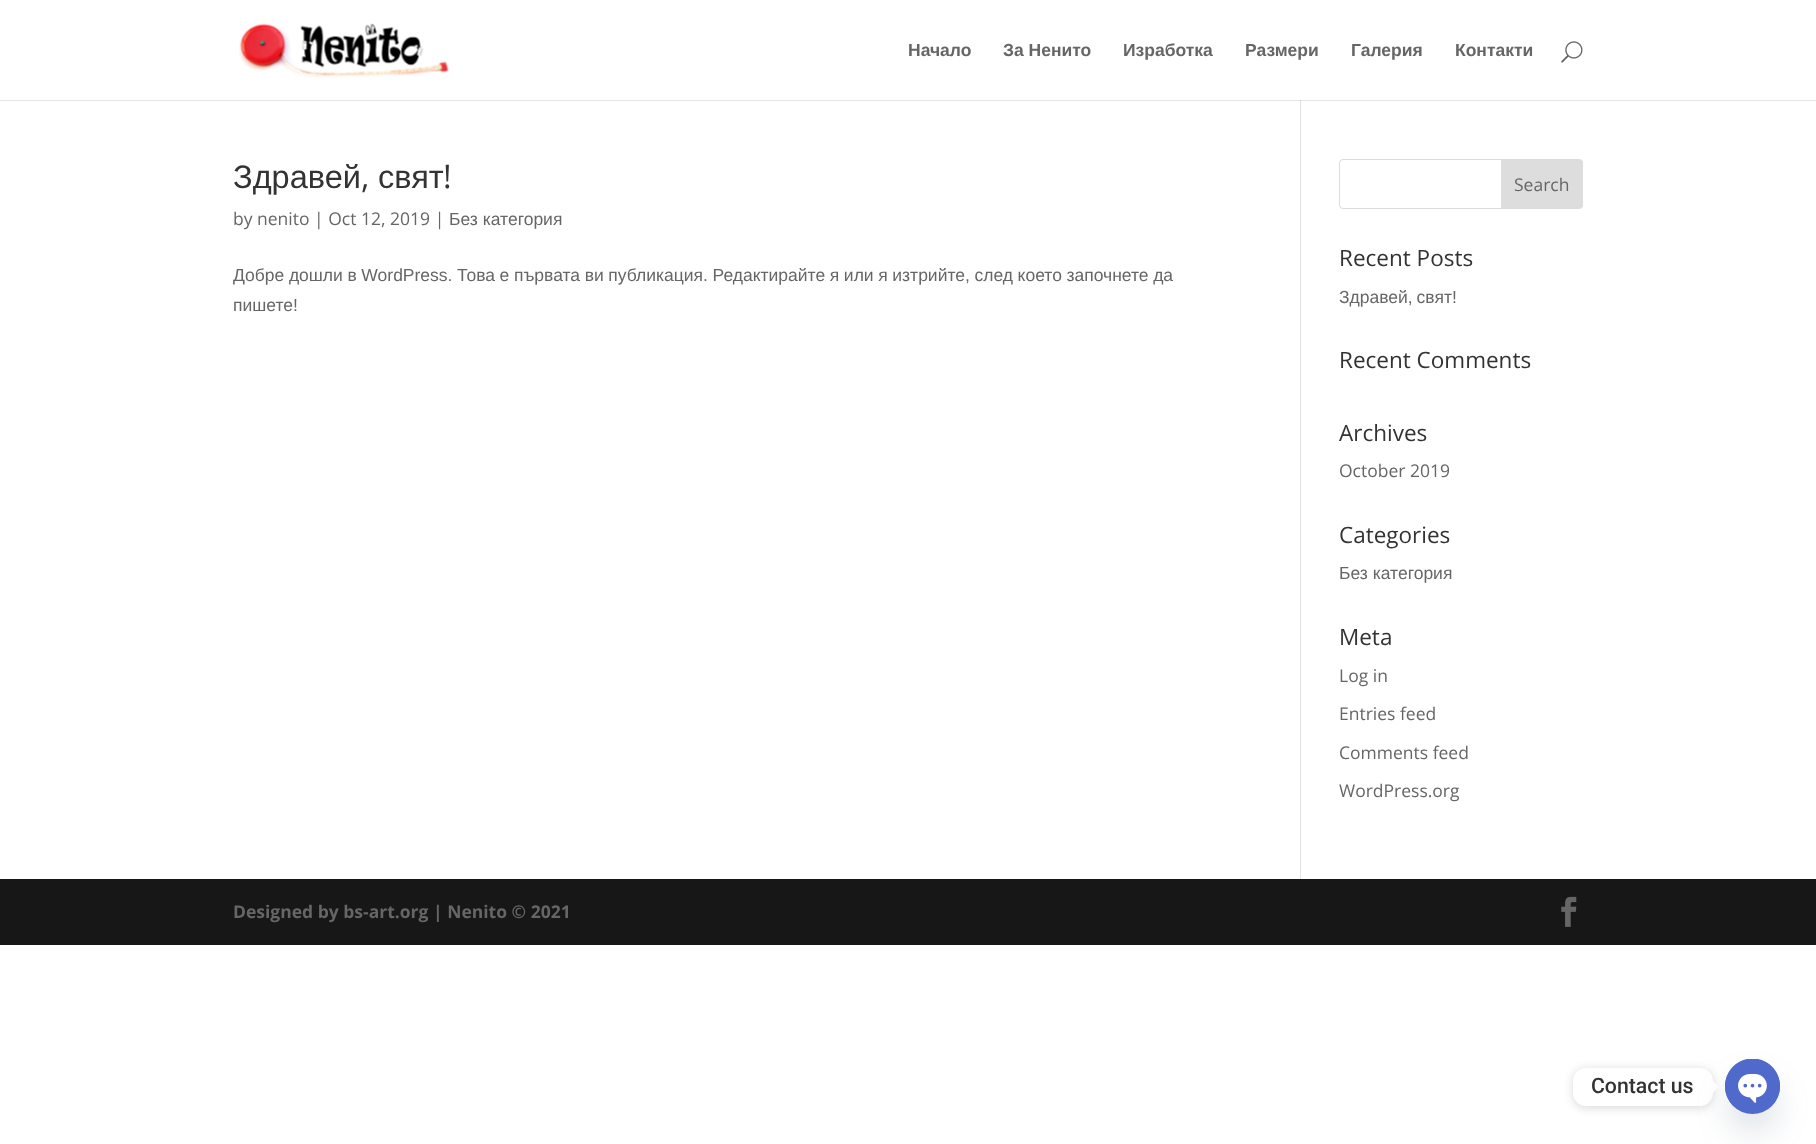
<svg xmlns="http://www.w3.org/2000/svg" width="1816" height="1144" viewBox="0 0 1816 1144">
  <rect width="100%" height="100%" fill="rgb(255,255,255)"/>
  <rect x="0" y="100" width="1816" height="1" fill="rgb(230,230,230)"/>
  <image x="239" y="23" width="211" height="55" href="pic1.png"/>
  <g font-family="Liberation Sans" font-size="17.5" font-weight="bold" fill="rgb(102,102,102)">
    <text x="908" y="56">Начало</text>
    <text x="1003" y="56">За Ненито</text>
    <text x="1123" y="56">Изработка</text>
    <text x="1245" y="56">Размери</text>
    <text x="1351" y="56">Галерия</text>
    <text x="1455" y="56">Контакти</text>
  </g>
  <image x="1561" y="41" width="22" height="22" href="pic2.png"/>
  <rect x="1300" y="101" width="1" height="778" fill="rgb(226,226,226)"/>
  <rect x="1300" y="100" width="1" height="1" fill="rgb(203,203,203)"/>
  <text x="233" y="188" font-family="Liberation Sans" font-size="32.5" fill="rgb(51,51,51)">Здравей</text>
  <text x="361" y="188" font-family="Open Sans" font-size="32.5" fill="rgb(51,51,51)">,</text>
  <text x="378" y="188" font-family="Liberation Sans" font-size="32.5" fill="rgb(51,51,51)">свят</text>
  <text x="443" y="188" font-family="Open Sans" font-size="32.5" fill="rgb(51,51,51)">!</text>
  <text x="233" y="225" font-family="Open Sans" font-size="17.5" fill="rgb(102,102,102)">by nenito | Oct 12, 2019 |</text>
  <g font-family="Liberation Sans" font-size="17.5" fill="rgb(102,102,102)">
    <text x="449" y="225">Без категория</text>
    <text>
      <tspan x="233" y="281" word-spacing="-0.25">Добре дошли в WordPress. Това е първата ви публикация. Редактирайте я или я изтрийте, след което започнете да</tspan>
      <tspan x="233" y="311">пишете!</tspan>
    </text>
  </g>
  <rect x="1339.5" y="159.5" width="243" height="49" rx="3.5" fill="none" stroke="rgb(221,221,221)"/>
  <path d="M1501.5 159.5H1579C1581 159.5 1582.5 161 1582.5 163V205C1582.5 207 1581 208.5 1579 208.5H1501.5Z" fill="rgb(221,221,221)" stroke="rgb(221,221,221)"/>
  <text x="1514" y="191" font-family="Open Sans" font-size="17.5" fill="rgb(102,102,102)">Search</text>
  <text x="1339" y="266" font-family="Open Sans" font-size="22.5" fill="rgb(51,51,51)">Recent Posts</text>
  <text x="1339" y="303" word-spacing="-1" font-family="Liberation Sans" font-size="17.5" fill="rgb(102,102,102)">Здравей, свят!</text>
  <g font-family="Open Sans" font-size="22.5" fill="rgb(51,51,51)">
    <text x="1339" y="368">Recent Comments</text>
    <text x="1339" y="441">Archives</text>
  </g>
  <text x="1339" y="477" font-family="Open Sans" font-size="17.5" fill="rgb(102,102,102)">October 2019</text>
  <text x="1339" y="543" font-family="Open Sans" font-size="22.5" fill="rgb(51,51,51)">Categories</text>
  <text x="1339" y="579" font-family="Liberation Sans" font-size="17.5" fill="rgb(102,102,102)">Без категория</text>
  <text x="1339" y="645" font-family="Open Sans" font-size="22.5" fill="rgb(51,51,51)">Meta</text>
  <g font-family="Open Sans" font-size="17.5" fill="rgb(102,102,102)">
    <text x="1339" y="682">Log in</text>
    <text x="1339" y="720">Entries feed</text>
    <text x="1339" y="759">Comments feed</text>
    <text x="1339" y="797">WordPress.org</text>
  </g>
  <rect x="0" y="879" width="1816" height="66" fill="rgb(23,23,23)"/>
  <text x="233" y="918" font-family="Open Sans" font-size="17.5" font-weight="bold" fill="rgb(102,102,102)">Designed by bs-art.org | Nenito © 2021</text>
  <image x="1561" y="896" width="16" height="31" href="pic3.png"/>
  <rect x="1573" y="1069" width="140" height="39" rx="13" fill="rgba(0,0,0,0.15)" filter="blur(5px)"/>
  <rect x="1573" y="1068" width="140" height="38" rx="13" fill="rgb(255,255,255)"/>
  <text x="1591" y="1093" font-family="Roboto" font-size="21.25" font-weight="500" fill="rgb(51,51,51)">Contact us</text>
  <path d="M1712.5 1093V1080.5L1719 1087Z" fill="rgb(255,255,255)"/>
  <rect x="1725" y="1079" width="55" height="55" rx="27.5" fill="rgba(73,104,126,0.16)" filter="blur(15px)"/>
  <circle cx="1752.5" cy="1086.5" r="27.5" fill="rgb(79,106,202)"/>
  <image x="1725" y="1059" width="55" height="47" href="pic4.png"/>
</svg>
